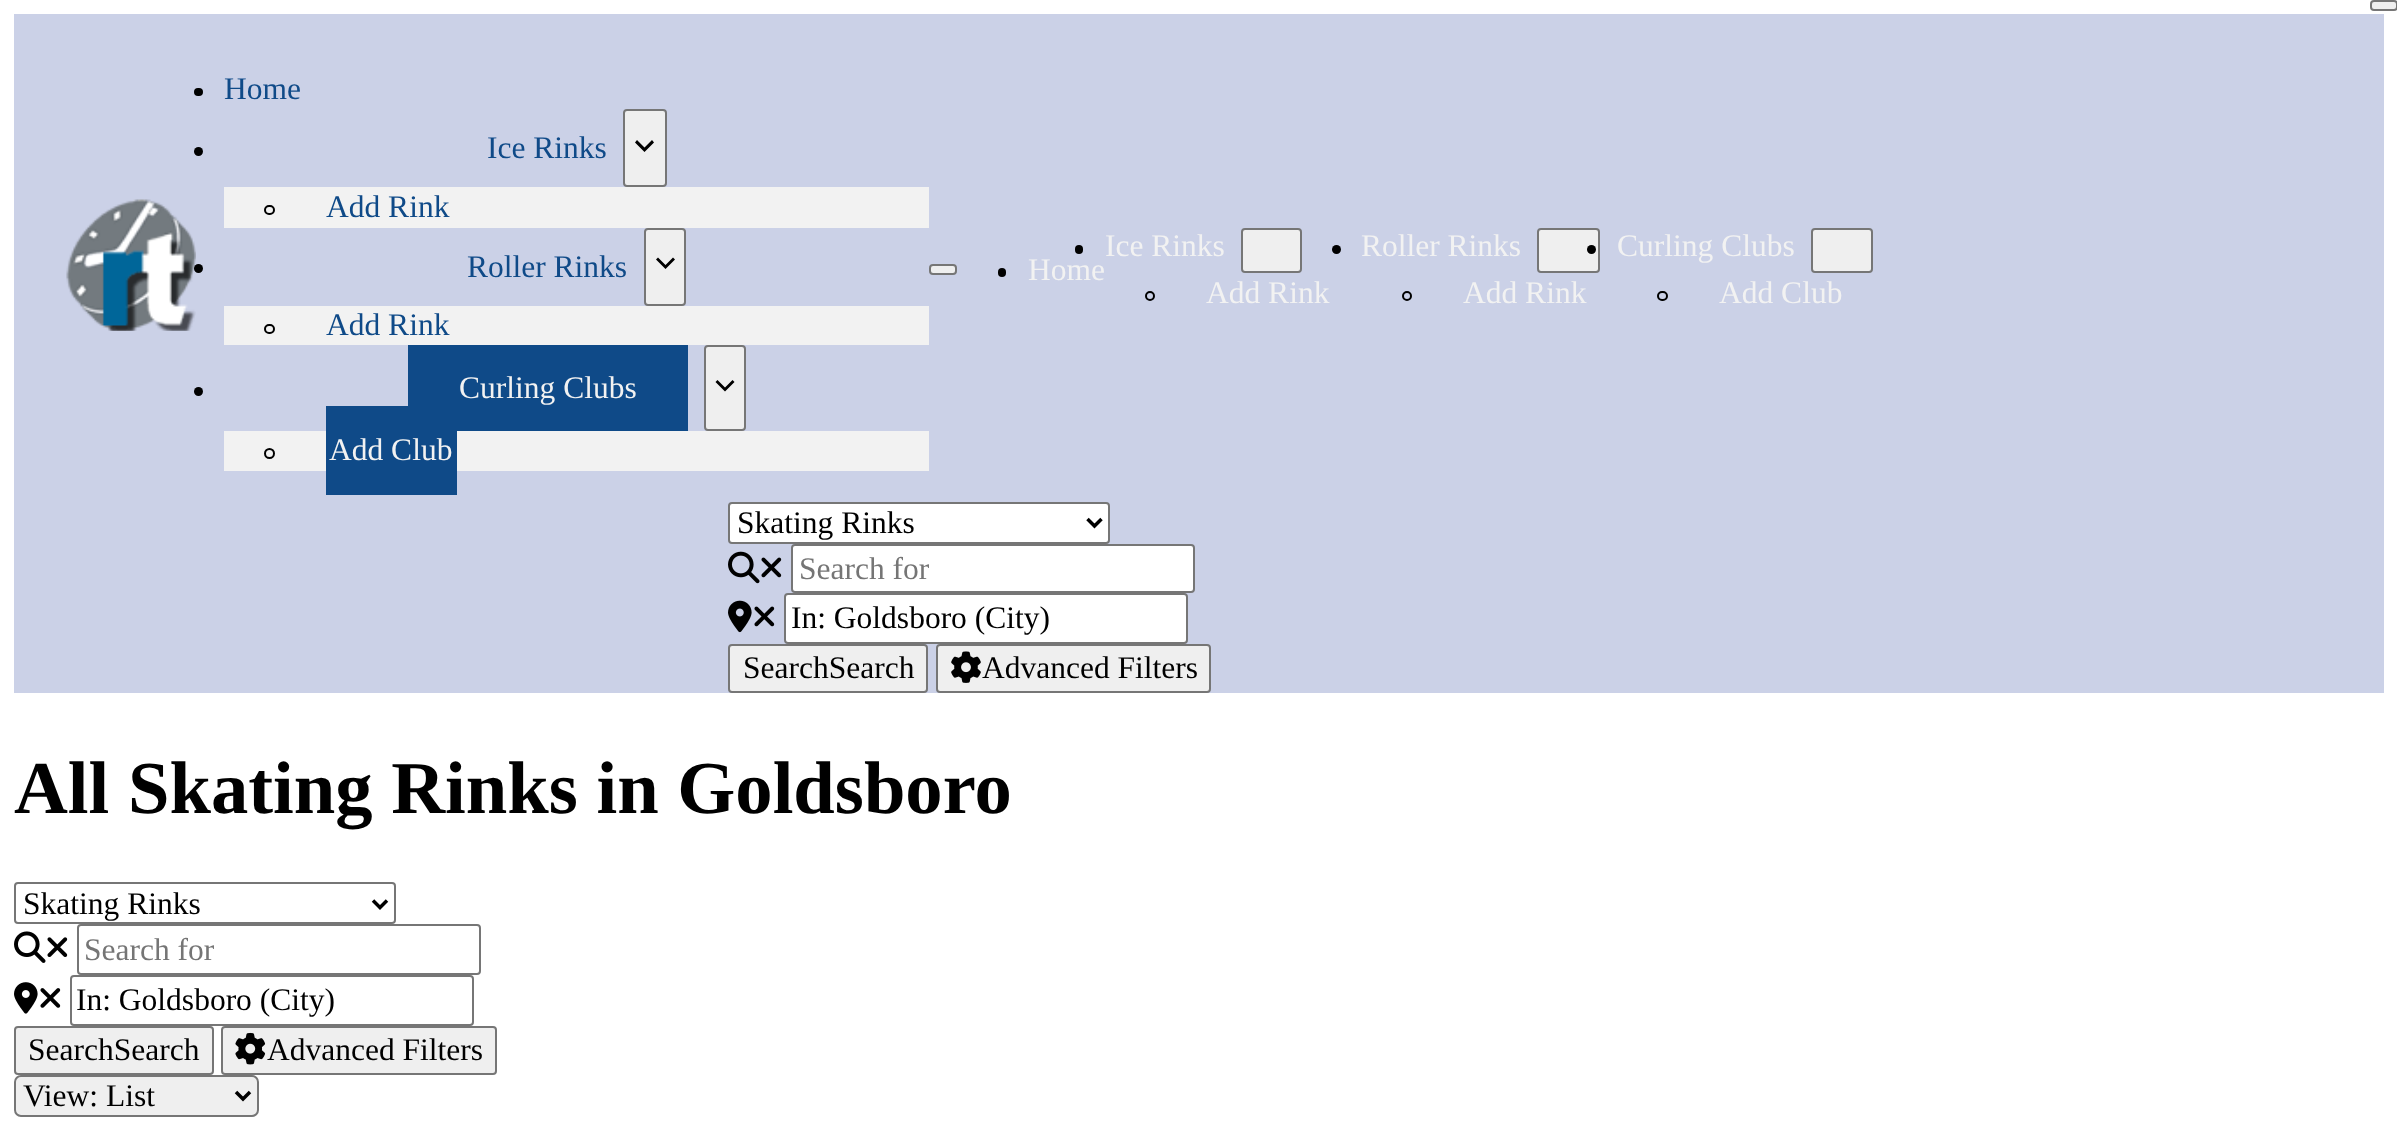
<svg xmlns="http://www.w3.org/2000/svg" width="2397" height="1133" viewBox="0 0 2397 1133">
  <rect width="100%" height="100%" fill="rgb(255,255,255)"/>
  <rect x="2371" y="1" width="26" height="9" rx="3" fill="rgb(239,239,239)" stroke="rgb(118,118,118)" stroke-width="2"/>
  <rect x="14" y="14" width="2370" height="679" fill="rgb(203,209,231)"/>
  <image x="66" y="199" width="130" height="132" href="pic1.png"/>
  <rect x="194" y="88" width="9" height="8" rx="4" fill="rgb(0,0,0)"/>
  <text x="224" y="99" font-family="Liberation Serif" font-size="31.5" fill="rgb(15,74,136)">Home</text>
  <circle cx="198.5" cy="151.5" r="4.5" fill="rgb(0,0,0)"/>
  <text x="487" y="158" font-family="Liberation Serif" font-size="31.5" fill="rgb(15,74,136)">Ice Rinks</text>
  <rect x="624" y="110" width="42" height="76" rx="3" fill="rgb(239,239,239)" stroke="rgb(118,118,118)" stroke-width="2"/>
  <path d="M644.5 147.5L652 140L654 142.5L644.5 152L635 142.5L637 140Z" fill="rgb(0,0,0)"/>
  <rect x="224" y="187" width="705" height="41" fill="rgb(242,242,242)"/>
  <rect x="265" y="206" width="9" height="8" rx="4" fill="none" stroke="rgb(0,0,0)" stroke-width="2"/>
  <text x="326" y="217" font-family="Liberation Serif" font-size="31.5" fill="rgb(15,74,136)">Add Rink</text>
  <circle cx="198.5" cy="268.5" r="4.5" fill="rgb(0,0,0)"/>
  <text x="467" y="277" font-family="Liberation Serif" font-size="31.5" fill="rgb(15,74,136)">Roller Rinks</text>
  <rect x="645" y="229" width="40" height="76" rx="3" fill="rgb(239,239,239)" stroke="rgb(118,118,118)" stroke-width="2"/>
  <path d="M665.5 265L673 257.5L675 259.5L665.5 269L656 259.5L658 257.5Z" fill="rgb(0,0,0)"/>
  <rect x="224" y="306" width="705" height="39" fill="rgb(242,242,242)"/>
  <rect x="265" y="325" width="9" height="8" rx="4" fill="none" stroke="rgb(0,0,0)" stroke-width="2"/>
  <text x="326" y="335" font-family="Liberation Serif" font-size="31.5" fill="rgb(15,74,136)">Add Rink</text>
  <circle cx="198.5" cy="391.5" r="4.5" fill="rgb(0,0,0)"/>
  <rect x="408" y="345" width="280" height="86" fill="rgb(15,74,136)"/>
  <text x="459" y="398" font-family="Liberation Serif" font-size="31.5" fill="rgb(242,242,242)">Curling Clubs</text>
  <rect x="705" y="346" width="40" height="84" rx="3" fill="rgb(239,239,239)" stroke="rgb(118,118,118)" stroke-width="2"/>
  <path d="M725 387.5L732.5 380L734.5 382L725 391.5L715.5 382L717.5 380Z" fill="rgb(0,0,0)"/>
  <rect x="224" y="431" width="705" height="40" fill="rgb(242,242,242)"/>
  <circle cx="269.5" cy="453.5" r="4.5" fill="none" stroke="rgb(0,0,0)" stroke-width="2"/>
  <rect x="326" y="406" width="131" height="89" fill="rgb(15,74,136)"/>
  <text x="329" y="460" font-family="Liberation Serif" font-size="31.5" fill="rgb(242,242,242)">Add Club</text>
  <rect x="930" y="265" width="26" height="9" rx="3" fill="rgb(239,239,239)" stroke="rgb(118,118,118)" stroke-width="2"/>
  <rect x="998" y="268" width="8" height="9" rx="4" fill="rgb(0,0,0)"/>
  <text x="1028" y="280" font-family="Liberation Serif" font-size="31.5" fill="rgb(242,242,242)">Home</text>
  <rect x="1075" y="245" width="8" height="9" rx="4" fill="rgb(0,0,0)"/>
  <text x="1105" y="256" font-family="Liberation Serif" font-size="31.5" fill="rgb(242,242,242)">Ice Rinks</text>
  <rect x="1242" y="229" width="59" height="43" rx="3" fill="rgb(239,239,239)" stroke="rgb(118,118,118)" stroke-width="2"/>
  <circle cx="1150" cy="296" r="4" fill="none" stroke="rgb(0,0,0)" stroke-width="2"/>
  <text x="1206" y="303" font-family="Liberation Serif" font-size="31.5" fill="rgb(242,242,242)">Add Rink</text>
  <circle cx="1336.5" cy="249.5" r="4.5" fill="rgb(0,0,0)"/>
  <text x="1361" y="256" font-family="Liberation Serif" font-size="31.5" fill="rgb(242,242,242)">Roller Rinks</text>
  <rect x="1538" y="229" width="61" height="43" rx="3" fill="rgb(239,239,239)" stroke="rgb(118,118,118)" stroke-width="2"/>
  <circle cx="1407" cy="296" r="4" fill="none" stroke="rgb(0,0,0)" stroke-width="2"/>
  <text x="1463" y="303" font-family="Liberation Serif" font-size="31.5" fill="rgb(242,242,242)">Add Rink</text>
  <circle cx="1591.5" cy="249.5" r="4.5" fill="rgb(0,0,0)"/>
  <text x="1617" y="256" font-family="Liberation Serif" font-size="31.5" fill="rgb(242,242,242)">Curling Clubs</text>
  <rect x="1812" y="229" width="60" height="43" rx="3" fill="rgb(239,239,239)" stroke="rgb(118,118,118)" stroke-width="2"/>
  <rect x="1658" y="292" width="9" height="8" rx="4" fill="none" stroke="rgb(0,0,0)" stroke-width="2"/>
  <text x="1719" y="303" font-family="Liberation Serif" font-size="31.5" fill="rgb(242,242,242)">Add Club</text>
  <rect x="729" y="503" width="380" height="40" rx="3" fill="rgb(255,255,255)" stroke="rgb(118,118,118)" stroke-width="2"/>
  <path d="M1087.5 519L1094.5 526L1101.5 519" fill="none" stroke="rgb(0,0,0)" stroke-width="3.5"/>
  <text x="737" y="533" font-family="Liberation Serif" font-size="31.5" fill="rgb(0,0,0)">Skating Rinks</text>
  <image x="728" y="551" width="32" height="33" href="pic2.png"/>
  <image x="761" y="557" width="21" height="21" href="pic3.png"/>
  <rect x="792" y="545" width="402" height="47" rx="3" fill="rgb(255,255,255)" stroke="rgb(118,118,118)" stroke-width="2"/>
  <text x="799" y="579" font-family="Liberation Serif" font-size="31.5" fill="rgb(117,117,117)">Search for</text>
  <image x="728" y="600" width="24" height="33" href="pic4.png"/>
  <image x="754" y="606" width="21" height="21" href="pic3.png"/>
  <rect x="785" y="594" width="402" height="49" rx="3" fill="rgb(255,255,255)" stroke="rgb(118,118,118)" stroke-width="2"/>
  <text x="791" y="628" font-family="Liberation Serif" font-size="31.5" fill="rgb(0,0,0)">In: Goldsboro (City)</text>
  <rect x="729" y="645" width="198" height="47" rx="3" fill="rgb(239,239,239)" stroke="rgb(118,118,118)" stroke-width="2"/>
  <text x="743" y="678" font-family="Liberation Serif" font-size="31.5" fill="rgb(0,0,0)">SearchSearch</text>
  <rect x="937" y="645" width="273" height="47" rx="3" fill="rgb(239,239,239)" stroke="rgb(118,118,118)" stroke-width="2"/>
  <image x="951" y="651" width="30" height="32" href="pic5.png"/>
  <text x="982" y="678" font-family="Liberation Serif" font-size="31.5" fill="rgb(0,0,0)">Advanced Filters</text>
  <text x="14" y="813" font-family="Liberation Serif" font-size="74.6" font-weight="bold" fill="rgb(0,0,0)">All Skating Rinks in Goldsboro</text>
  <rect x="15" y="883" width="380" height="40" rx="3" fill="none" stroke="rgb(118,118,118)" stroke-width="2"/>
  <path d="M373 900.5L380 907.5L387 900.5" fill="none" stroke="rgb(0,0,0)" stroke-width="3.5"/>
  <text x="23" y="914" font-family="Liberation Serif" font-size="31.5" fill="rgb(0,0,0)">Skating Rinks</text>
  <image x="14" y="931" width="32" height="32" href="pic6.png"/>
  <image x="47" y="937" width="21" height="20" href="pic7.png"/>
  <rect x="78" y="925" width="402" height="49" rx="3" fill="none" stroke="rgb(118,118,118)" stroke-width="2"/>
  <text x="84" y="960" font-family="Liberation Serif" font-size="31.5" fill="rgb(117,117,117)">Search for</text>
  <image x="14" y="982" width="24" height="32" href="pic8.png"/>
  <image x="40" y="988" width="21" height="20" href="pic9.png"/>
  <rect x="71" y="976" width="402" height="49" rx="3" fill="none" stroke="rgb(118,118,118)" stroke-width="2"/>
  <text x="76" y="1010" font-family="Liberation Serif" font-size="31.5" fill="rgb(0,0,0)">In: Goldsboro (City)</text>
  <rect x="15" y="1027" width="198" height="47" rx="3" fill="rgb(239,239,239)" stroke="rgb(118,118,118)" stroke-width="2"/>
  <text x="28" y="1060" font-family="Liberation Serif" font-size="31.5" fill="rgb(0,0,0)">SearchSearch</text>
  <rect x="222" y="1027" width="274" height="47" rx="3" fill="rgb(239,239,239)" stroke="rgb(118,118,118)" stroke-width="2"/>
  <image x="235" y="1032" width="31" height="33" href="pic10.png"/>
  <text x="267" y="1060" font-family="Liberation Serif" font-size="31.5" fill="rgb(0,0,0)">Advanced Filters</text>
  <rect x="15" y="1076" width="243" height="40" rx="6" fill="rgb(239,239,239)" stroke="rgb(118,118,118)" stroke-width="2"/>
  <path d="M236 1092L243 1099L250 1092" fill="none" stroke="rgb(0,0,0)" stroke-width="3.5"/>
  <text x="23" y="1106" font-family="Liberation Serif" font-size="31.5" fill="rgb(0,0,0)">View: List</text>
</svg>
